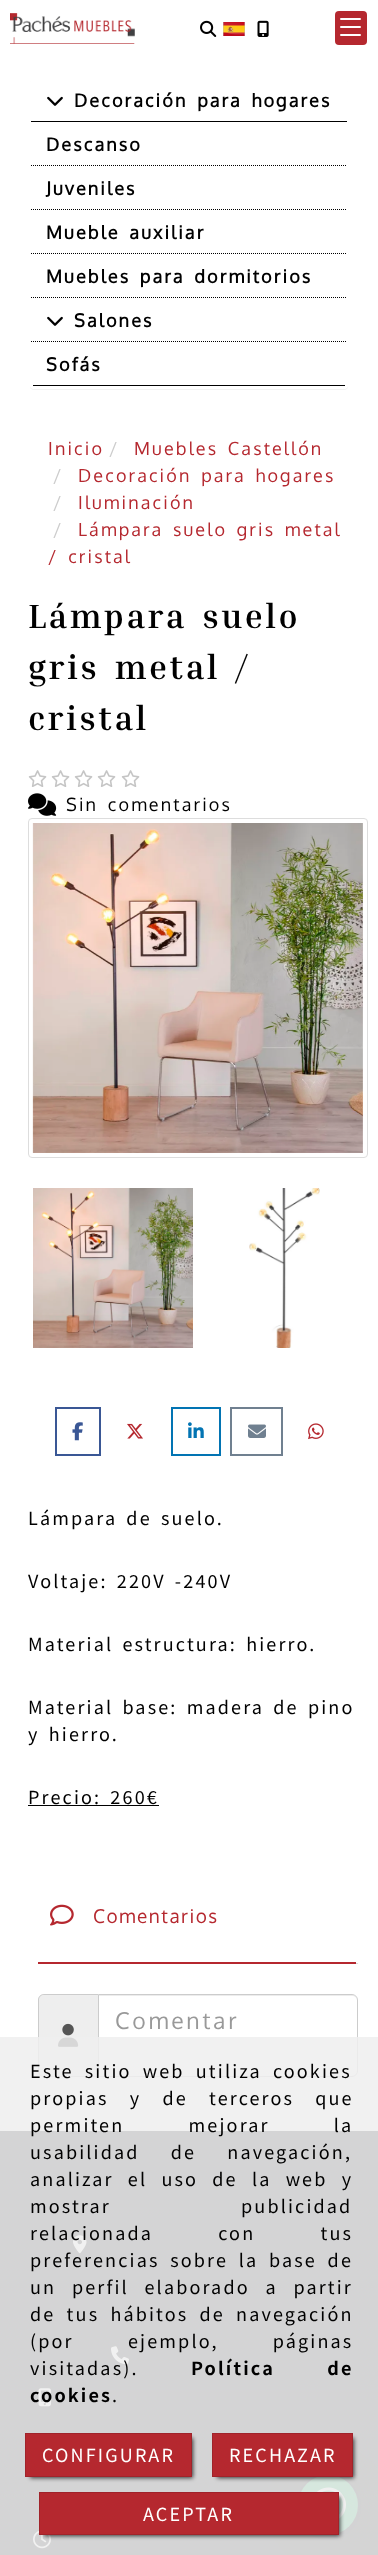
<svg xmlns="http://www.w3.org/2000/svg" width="378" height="2555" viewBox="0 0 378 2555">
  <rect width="100%" height="100%" fill="rgb(255,255,255)"/>
  <image x="10" y="13" width="125" height="31" href="pic1.png"/>
  <image x="200" y="20" width="17" height="17" href="pic2.png"/>
  <image x="223" y="22" width="22" height="14" href="pic3.png"/>
  <image x="257" y="20" width="12" height="17" href="pic4.png"/>
  <rect x="335" y="11" width="32" height="34" rx="4" fill="rgb(181,40,47)"/>
  <rect x="340" y="26" width="21" height="2" rx="1" fill="rgb(255,255,255)"/>
  <rect x="340" y="18" width="21" height="2" rx="1" fill="rgb(255,255,255)"/>
  <rect x="340" y="34" width="21" height="2" rx="1" fill="rgb(255,255,255)"/>
  <rect x="30" y="80" width="318" height="310" rx="4" fill="rgba(0,0,0,0.05)" filter="blur(0.5px)"/>
  <rect x="30" y="79" width="318" height="310" rx="4" fill="rgb(255,255,255)"/>
  <rect x="31" y="121" width="316" height="1" fill="rgb(0,0,0)"/>
  <image x="47" y="96" width="16" height="10" href="pic5.png"/>
  <text x="74" y="107" word-spacing="3" font-family="Oxygen" font-size="18" font-weight="bold" letter-spacing="2.15" fill="rgb(0,0,0)">Decoración para hogares</text>
  <path d="M31 165.5H347" fill="none" stroke="rgb(0,0,0)" stroke-dasharray="1 1"/>
  <text x="46" y="151" font-family="Oxygen" font-size="18" font-weight="bold" letter-spacing="2.15" fill="rgb(0,0,0)">Descanso</text>
  <path d="M31 209.5H347" fill="none" stroke="rgb(0,0,0)" stroke-dasharray="1 1"/>
  <text x="46" y="195" font-family="Oxygen" font-size="18" font-weight="bold" letter-spacing="2.15" fill="rgb(0,0,0)">Juveniles</text>
  <path d="M31 253.5H347" fill="none" stroke="rgb(0,0,0)" stroke-dasharray="1 1"/>
  <text x="46" y="239" word-spacing="3" font-family="Oxygen" font-size="18" font-weight="bold" letter-spacing="2.15" fill="rgb(0,0,0)">Mueble auxiliar</text>
  <path d="M31 297.5H347" fill="none" stroke="rgb(0,0,0)" stroke-dasharray="1 1"/>
  <text x="46" y="283" word-spacing="3" font-family="Oxygen" font-size="18" font-weight="bold" letter-spacing="2.15" fill="rgb(0,0,0)">Muebles para dormitorios</text>
  <path d="M31 341.5H347" fill="none" stroke="rgb(0,0,0)" stroke-dasharray="1 1"/>
  <image x="47" y="316" width="16" height="10" href="pic5.png"/>
  <text x="74" y="327" font-family="Oxygen" font-size="18" font-weight="bold" letter-spacing="2.15" fill="rgb(0,0,0)">Salones</text>
  <rect x="33" y="385" width="312" height="1" fill="rgb(0,0,0)"/>
  <text x="46" y="371" font-family="Oxygen" font-size="18" font-weight="bold" letter-spacing="2.15" fill="rgb(0,0,0)">Sofás</text>
  <text x="48" y="455" font-family="Oxygen" font-size="18" letter-spacing="2.15" fill="rgb(181,40,47)">Inicio</text>
  <text x="109" y="455" font-family="Oxygen" font-size="18" letter-spacing="2.15" fill="rgb(204,204,204)">/</text>
  <text x="134" y="455" word-spacing="3" font-family="Oxygen" font-size="18" letter-spacing="2.15" fill="rgb(181,40,47)">Muebles Castellón</text>
  <text x="53" y="482" font-family="Oxygen" font-size="18" letter-spacing="2.15" fill="rgb(204,204,204)">/</text>
  <text x="78" y="482" word-spacing="3" font-family="Oxygen" font-size="18" letter-spacing="2.15" fill="rgb(181,40,47)">Decoración para hogares</text>
  <text x="53" y="509" font-family="Oxygen" font-size="18" letter-spacing="2.15" fill="rgb(204,204,204)">/</text>
  <text x="78" y="509" font-family="Oxygen" font-size="18" letter-spacing="2.15" fill="rgb(181,40,47)">Iluminación</text>
  <text x="53" y="536" font-family="Oxygen" font-size="18" letter-spacing="2.15" fill="rgb(204,204,204)">/</text>
  <g font-family="Oxygen" font-size="18" letter-spacing="2.15" fill="rgb(181,40,47)">
    <text x="78" y="536" word-spacing="3">Lámpara suelo gris metal</text>
    <text x="48" y="563" word-spacing="3">/ cristal</text>
  </g>
  <g font-family="Inria Serif" font-size="34" font-weight="bold" letter-spacing="2.75" fill="rgb(0,0,0)">
    <text>
      <tspan x="28" y="628" word-spacing="5">Lámpara suelo</tspan>
      <tspan x="28" y="679" word-spacing="5">gris metal /</tspan>
      <tspan x="28" y="730">cristal</tspan>
    </text>
  </g>
  <image x="28" y="770" width="19" height="17" href="pic6.png"/>
  <image x="51" y="770" width="19" height="17" href="pic6.png"/>
  <image x="74" y="770" width="19" height="17" href="pic6.png"/>
  <image x="97" y="770" width="19" height="17" href="pic6.png"/>
  <image x="121" y="770" width="19" height="17" href="pic6.png"/>
  <image x="28" y="793" width="29" height="23" href="pic7.png"/>
  <text x="66" y="811" word-spacing="3" font-family="Oxygen" font-size="18" letter-spacing="2.15" fill="rgb(0,0,0)">Sin comentarios</text>
  <rect x="28.5" y="818.5" width="339" height="339" rx="3.5" fill="none" stroke="rgb(221,221,221)"/>
  <image x="32" y="823" width="331" height="330" href="pic8.png"/>
  <image x="33" y="1188" width="160" height="160" href="pic9.png"/>
  <image x="249" y="1188" width="71" height="160" href="pic10.png"/>
  <rect x="56" y="1408" width="44" height="47" fill="none" stroke="rgb(58,87,149)" stroke-width="2"/>
  <image x="72" y="1422" width="11" height="19" href="pic11.png"/>
  <image x="127" y="1423" width="16" height="16" href="pic12.png"/>
  <rect x="172" y="1408" width="48" height="47" fill="none" stroke="rgb(2,116,179)" stroke-width="2"/>
  <image x="188" y="1422" width="16" height="16" href="pic13.png"/>
  <rect x="231" y="1408" width="51" height="47" fill="none" stroke="rgb(112,128,144)" stroke-width="2"/>
  <image x="248" y="1424" width="18" height="14" href="pic14.png"/>
  <image x="308" y="1423" width="16" height="17" href="pic15.png"/>
  <g font-family="Noto Sans TC" font-size="18" letter-spacing="2.15" fill="rgb(0,0,0)">
    <text x="28" y="1525" word-spacing="3">Lámpara de suelo.</text>
    <text x="28" y="1588" word-spacing="3">Voltaje: 220V -240V</text>
    <text x="28" y="1651" word-spacing="3">Material estructura: hierro.</text>
    <text>
      <tspan x="28" y="1714" word-spacing="3">Material base: madera de pino</tspan>
      <tspan x="28" y="1741" word-spacing="3">y hierro.</tspan>
    </text>
    <text x="28" y="1804" word-spacing="3">Precio: 260€</text>
  </g>
  <rect x="28" y="1805" width="131" height="1" fill="rgb(0,0,0)"/>
  <rect x="356" y="1963" width="2" height="1" fill="rgb(221,221,221)"/>
  <image x="50" y="1904" width="24" height="22" href="pic16.png"/>
  <text x="93" y="1923" font-family="Oxygen" font-size="19" letter-spacing="1.5" fill="rgb(181,40,47)">Comentarios</text>
  <rect x="38" y="1962" width="318" height="2" fill="rgb(181,40,47)"/>
  <path d="M44 1994H98V2077H44C40.5 2077 38 2074.5 38 2071V2000C38 1996.5 40.5 1994 44 1994Z" fill="rgb(238,238,238)"/>
  <path d="M44 1994H98V2077H44C41 2077 38 2074 38 2071V2000C38 1997 41 1994 44 1994ZM44 1995H98V2076H44C41 2076 39 2074 39 2071V2000C39 1997 41 1995 44 1995Z" fill="rgb(204,204,204)" fill-rule="evenodd"/>
  <image x="58" y="2023" width="21" height="24" href="pic17.png"/>
  <path d="M99 1996H352C355 1996 357 1998 357 2001C357 1998 355 1995 352 1995H99Z" fill="rgb(236,236,236)"/>
  <path d="M98.5 1994.5H352C355 1994.5 357.5 1997 357.5 2000V2071C357.5 2074 355 2076.5 352 2076.5H98.5Z" fill="none" stroke="rgb(204,204,204)"/>
  <text x="115" y="2029" font-family="Oxygen" font-size="23" letter-spacing="2.75" fill="rgb(153,153,153)">Comentar</text>
  <rect x="0" y="2131" width="378" height="424" fill="rgb(64,64,66)"/>
  <image x="73" y="2235" width="14" height="19" href="pic18.png"/>
  <image x="111" y="2346" width="18" height="19" href="pic19.png"/>
  <image x="38" y="2388" width="13" height="19" href="pic20.png"/>
  <image x="33" y="2530" width="18" height="19" href="pic21.png"/>
  <rect x="298" y="2477" width="60" height="60" rx="30" fill="rgba(0,0,0,0.2)" filter="blur(16px)"/>
  <circle cx="328" cy="2505" r="30" fill="rgb(78,185,128)"/>
  <image x="317" y="2487" width="29" height="32" href="pic22.png"/>
  <rect x="0" y="2037" width="378" height="518" fill="rgba(238,238,238,0.85)"/>
  <g font-family="Noto Sans TC" font-size="18" letter-spacing="2.15" fill="rgb(0,0,0)">
    <text>
      <tspan x="30" y="2078" word-spacing="5">Este sitio web utiliza cookies</tspan>
      <tspan x="30" y="2105" word-spacing="15">propias y de terceros que</tspan>
      <tspan x="30" y="2132" word-spacing="58">permiten mejorar la</tspan>
      <tspan x="30" y="2159" word-spacing="25">usabilidad de navegación,</tspan>
      <tspan x="30" y="2186" word-spacing="8">analizar el uso de la web y</tspan>
      <tspan x="30" y="2213" word-spacing="124">mostrar publicidad</tspan>
      <tspan x="30" y="2240" word-spacing="59">relacionada con tus</tspan>
      <tspan x="30" y="2267" word-spacing="4.5">preferencias sobre la base de</tspan>
      <tspan x="30" y="2294" word-spacing="9.5">un perfil elaborado a partir</tspan>
      <tspan x="30" y="2321" word-spacing="5">de tus hábitos de navegación</tspan>
      <tspan x="30" y="2348" word-spacing="48">(por ejemplo, páginas</tspan>
      <tspan x="30" y="2375">visitadas).</tspan>
    </text>
  </g>
  <g font-family="Noto Sans TC" font-size="18" font-weight="bold" letter-spacing="2.15" fill="rgb(0,0,0)">
    <text x="191" y="2375" word-spacing="46">Política de</text>
    <text x="30" y="2402">cookies</text>
  </g>
  <text x="112" y="2402" font-family="Noto Sans TC" font-size="18" letter-spacing="2.15" fill="rgb(0,0,0)">.</text>
  <rect x="30" y="2438" width="163" height="40" fill="rgba(0,0,0,0.75)" filter="blur(2px)"/>
  <rect x="25.5" y="2433.5" width="166" height="43" fill="rgb(181,40,47)" stroke="rgb(160,35,42)"/>
  <text x="42" y="2462" font-family="Noto Sans TC" font-size="18" letter-spacing="2.15" fill="rgb(255,255,255)">CONFIGURAR</text>
  <rect x="217" y="2438" width="137" height="40" fill="rgba(0,0,0,0.75)" filter="blur(2px)"/>
  <rect x="212.5" y="2433.5" width="140" height="43" fill="rgb(181,40,47)" stroke="rgb(160,35,42)"/>
  <text x="229" y="2462" font-family="Noto Sans TC" font-size="18" letter-spacing="2.15" fill="rgb(255,255,255)">RECHAZAR</text>
  <rect x="44" y="2497" width="296" height="39" fill="rgba(0,0,0,0.75)" filter="blur(2px)"/>
  <rect x="39.5" y="2492.5" width="299" height="42" fill="rgb(181,40,47)" stroke="rgb(160,35,42)"/>
  <text x="143" y="2521" font-family="Noto Sans TC" font-size="18" letter-spacing="2.15" fill="rgb(255,255,255)">ACEPTAR</text>
</svg>
